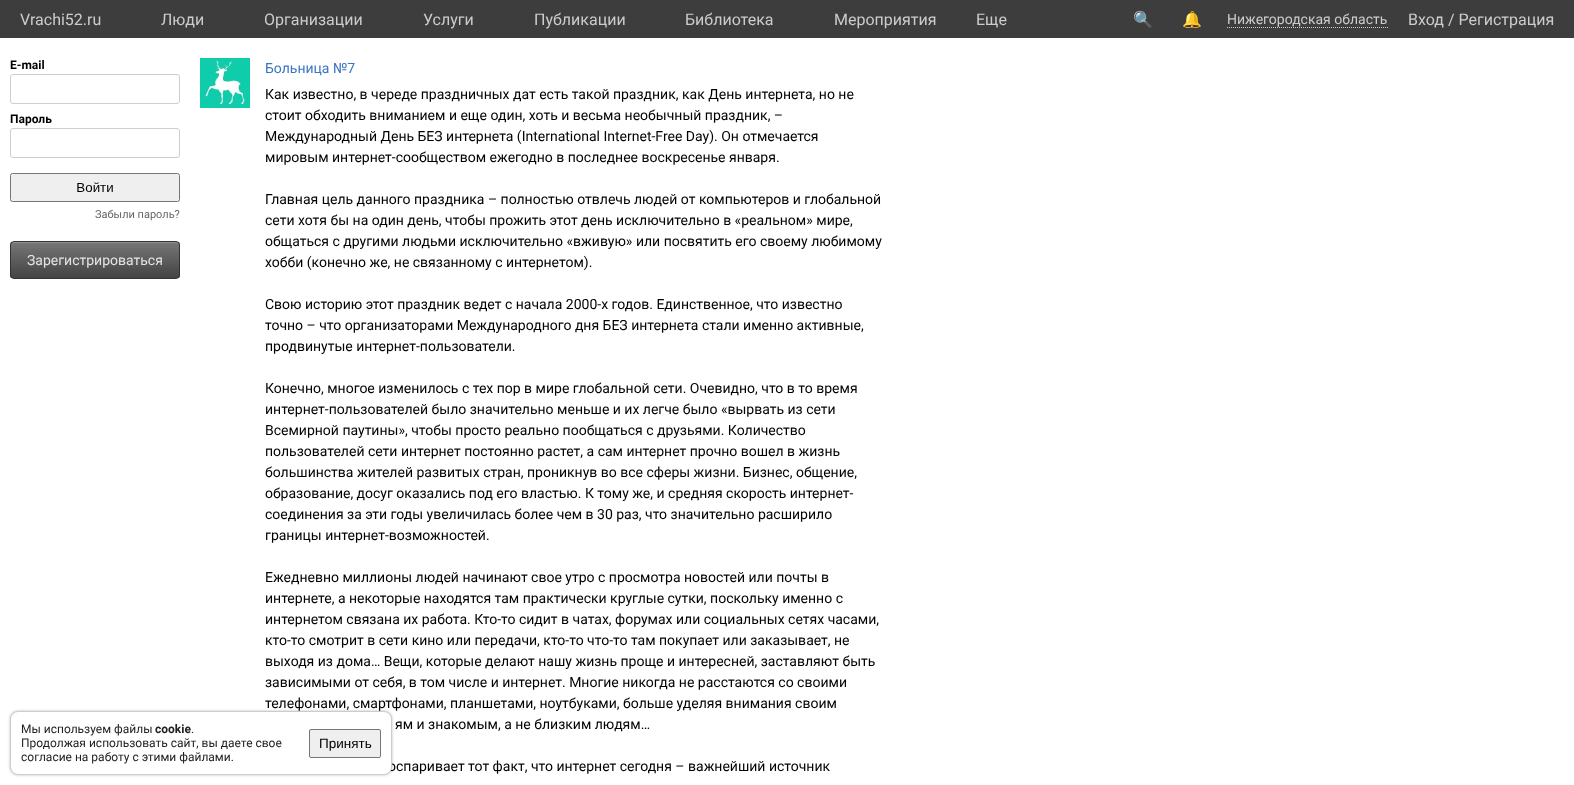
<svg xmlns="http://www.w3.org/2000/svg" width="1574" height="785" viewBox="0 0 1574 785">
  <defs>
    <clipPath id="clip1"><rect x="10" y="241" width="170" height="38" rx="4"/></clipPath>
    <linearGradient id="g1" gradientUnits="userSpaceOnUse" x1="95" y1="242" x2="95" y2="278"><stop offset="0" stop-color="rgb(119,119,119)"/><stop offset="1" stop-color="rgb(67,67,67)"/></linearGradient>
  </defs>
  <rect width="100%" height="100%" fill="rgb(255,255,255)"/>
  <rect x="0" y="0" width="1574" height="38" fill="rgb(61,61,61)"/>
  <g font-family="Roboto" font-size="16" fill="rgb(204,204,204)">
    <text x="20" y="25">Vrachi52.ru</text>
    <text x="161" y="25">Люди</text>
    <text x="264" y="25">Организации</text>
    <text x="423" y="25">Услуги</text>
    <text x="534" y="25">Публикации</text>
    <text x="685" y="25">Библиотека</text>
    <text x="834" y="25">Мероприятия</text>
    <text x="976" y="25">Eще</text>
  </g>
  <g font-family="Noto Color Emoji" font-size="16" fill="rgb(204,204,204)">
    <text x="1133" y="25">🔍</text>
    <text x="1182" y="25">🔔</text>
  </g>
  <path d="M1227 27.5H1388" fill="none" stroke="rgb(204,204,204)" stroke-dasharray="1 1"/>
  <text x="1227" y="24" font-family="Roboto" font-size="14" fill="rgb(204,204,204)">Нижегородская область</text>
  <text x="1408" y="25" font-family="Roboto" font-size="16" fill="rgb(204,204,204)">Вход / Регистрация</text>
  <rect x="10" y="711" width="382" height="64" rx="8" fill="rgba(34,60,80,0.3)" filter="blur(1.5px)"/>
  <text x="388" y="771" font-family="Roboto" font-size="14" fill="rgb(0,0,0)">оспаривает тот факт, что интернет сегодня – важнейший источник</text>
  <rect x="10.5" y="711.5" width="381" height="63" rx="7.5" fill="rgb(255,255,255)" stroke="rgb(204,204,204)"/>
  <text x="21" y="733" font-family="Roboto" font-size="12" fill="rgb(34,34,34)">Мы используем файлы</text>
  <text x="155" y="733" font-family="Roboto" font-size="12" font-weight="bold" fill="rgb(34,34,34)">cookie</text>
  <g font-family="Roboto" font-size="12" fill="rgb(34,34,34)">
    <text x="191" y="733">.</text>
    <text>
      <tspan x="21" y="747">Продолжая использовать сайт, вы даете свое</tspan>
      <tspan x="21" y="761">согласие на работу с этими файлами.</tspan>
    </text>
  </g>
  <rect x="309.5" y="729.5" width="71" height="28" rx="1.5" fill="rgb(239,239,239)" stroke="rgb(118,118,118)"/>
  <text x="319" y="748" font-family="Liberation Sans" font-size="13.5" fill="rgb(0,0,0)">Принять</text>
  <image x="200" y="58" width="50" height="50" href="pic1.png"/>
  <text x="265" y="73" font-family="Roboto" font-size="14" fill="rgb(58,117,195)">Больница №7</text>
  <g font-family="Roboto" font-size="14" fill="rgb(0,0,0)">
    <text>
      <tspan x="265" y="99">Как известно, в череде праздничных дат есть такой праздник, как День интернета, но не</tspan>
      <tspan x="265" y="120">стоит обходить вниманием и еще один, хоть и весьма необычный праздник, –</tspan>
      <tspan x="265" y="141">Международный День БЕЗ интернета (International Internet-Free Day). Он отмечается</tspan>
      <tspan x="265" y="162">мировым интернет-сообществом ежегодно в последнее воскресенье января.</tspan>
    </text>
    <text>
      <tspan x="265" y="204">Главная цель данного праздника – полностью отвлечь людей от компьютеров и глобальной</tspan>
      <tspan x="265" y="225">сети хотя бы на один день, чтобы прожить этот день исключительно в «реальном» мире,</tspan>
      <tspan x="265" y="246">общаться с другими людьми исключительно «вживую» или посвятить его своему любимому</tspan>
      <tspan x="265" y="267">хобби (конечно же, не связанному с интернетом).</tspan>
    </text>
    <text>
      <tspan x="265" y="309">Свою историю этот праздник ведет с начала 2000-х годов. Единственное, что известно</tspan>
      <tspan x="265" y="330">точно – что организаторами Международного дня БЕЗ интернета стали именно активные,</tspan>
      <tspan x="265" y="351">продвинутые интернет-пользователи.</tspan>
    </text>
    <text>
      <tspan x="265" y="393">Конечно, многое изменилось с тех пор в мире глобальной сети. Очевидно, что в то время</tspan>
      <tspan x="265" y="414">интернет-пользователей было значительно меньше и их легче было «вырвать из сети</tspan>
      <tspan x="265" y="435">Всемирной паутины», чтобы просто реально пообщаться с друзьями. Количество</tspan>
      <tspan x="265" y="456">пользователей сети интернет постоянно растет, а сам интернет прочно вошел в жизнь</tspan>
      <tspan x="265" y="477">большинства жителей развитых стран, проникнув во все сферы жизни. Бизнес, общение,</tspan>
      <tspan x="265" y="498">образование, досуг оказались под его властью. К тому же, и средняя скорость интернет-</tspan>
      <tspan x="265" y="519">соединения за эти годы увеличилась более чем в 30 раз, что значительно расширило</tspan>
      <tspan x="265" y="540">границы интернет-возможностей.</tspan>
    </text>
    <text>
      <tspan x="265" y="582">Ежедневно миллионы людей начинают свое утро с просмотра новостей или почты в</tspan>
      <tspan x="265" y="603">интернете, а некоторые находятся там практически круглые сутки, поскольку именно с</tspan>
      <tspan x="265" y="624">интернетом связана их работа. Кто-то сидит в чатах, форумах или социальных сетях часами,</tspan>
      <tspan x="265" y="645">кто-то смотрит в сети кино или передачи, кто-то что-то там покупает или заказывает, не</tspan>
      <tspan x="265" y="666">выходя из дома… Вещи, которые делают нашу жизнь проще и интересней, заставляют быть</tspan>
      <tspan x="265" y="687">зависимыми от себя, в том числе и интернет. Многие никогда не расстаются со своими</tspan>
      <tspan x="265" y="708">телефонами, смартфонами, планшетами, ноутбуками, больше уделяя внимания своим</tspan>
    </text>
    <text x="395" y="729">ям и знакомым, а не близким людям…</text>
  </g>
  <image x="10" y="60" width="170" height="142" href="pic2.png"/>
  <text x="95" y="218" font-family="Roboto" font-size="11" fill="rgb(102,102,102)">Забыли пароль?</text>
  <g clip-path="url(#clip1)">
    <rect x="10" y="242" width="170" height="36" fill="url(#g1)"/>
  </g>
  <path d="M14 243H176C178 243 179 244 179 246V245C179 243 178 242 176 242H14C12 242 11 243 11 245V246C11 244 12 243 14 243Z" fill="rgb(145,145,145)"/>
  <rect x="10.5" y="241.5" width="169" height="37" rx="3.5" fill="none" stroke="rgb(51,51,51)"/>
  <text x="27" y="265" font-family="Roboto" font-size="14" fill="rgb(228,228,228)">Зарегистрироваться</text>
</svg>
